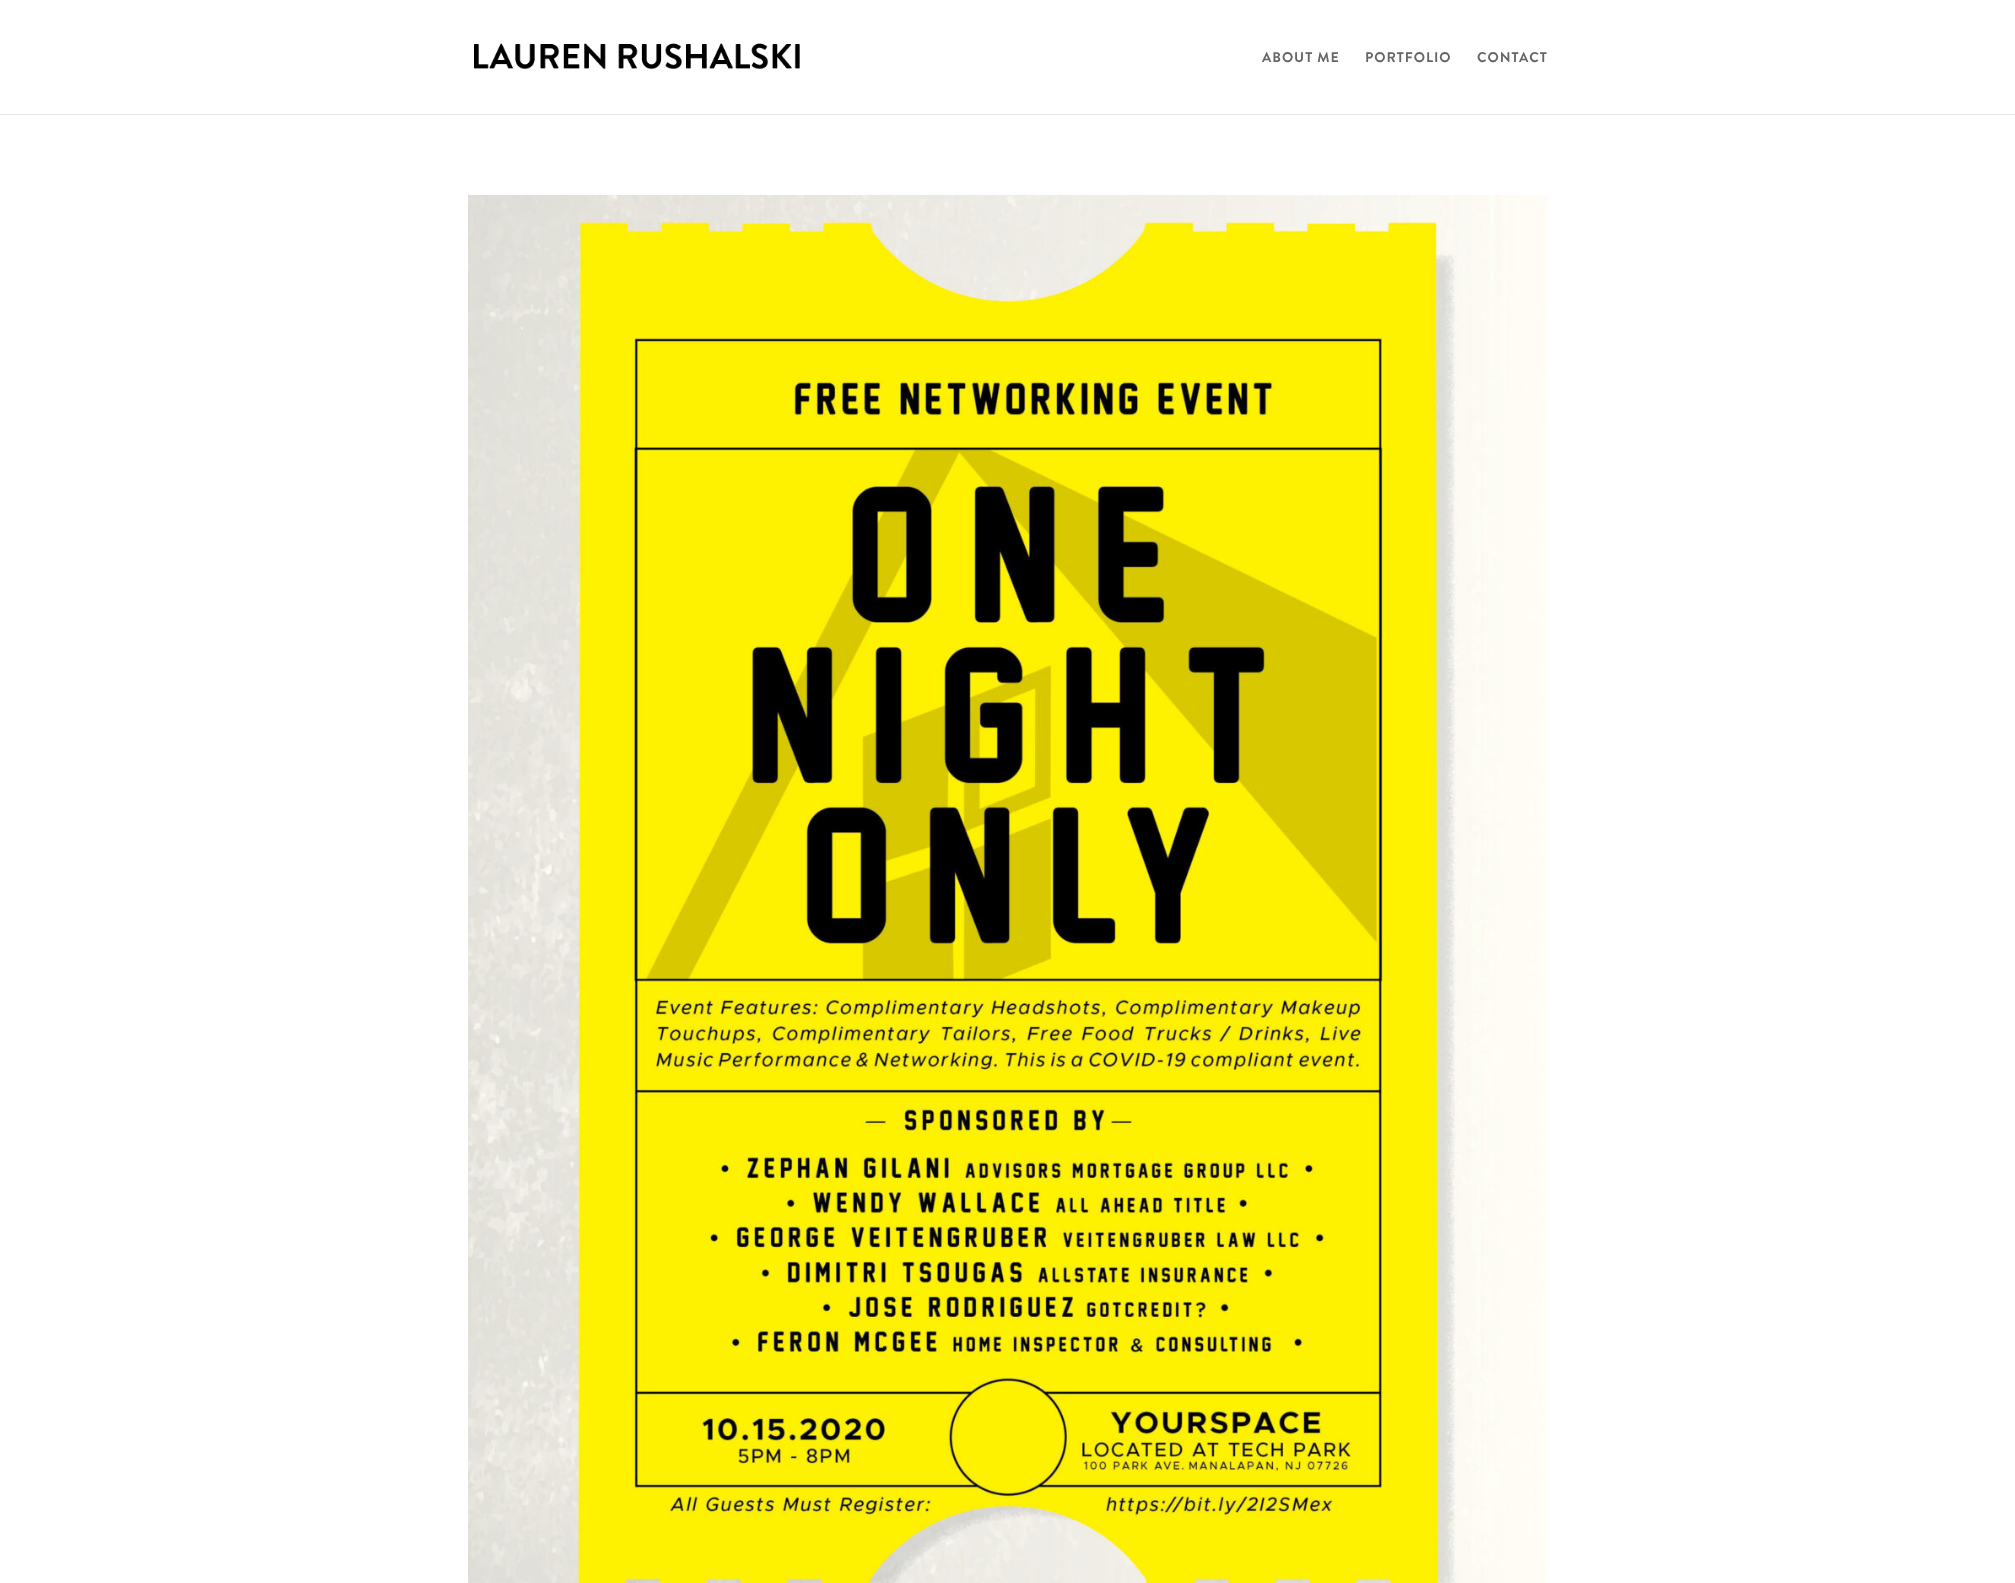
<svg xmlns="http://www.w3.org/2000/svg" width="2015" height="1583" viewBox="0 0 2015 1583">
  <rect width="100%" height="100%" fill="rgb(255,255,255)"/>
  <rect x="0" y="114" width="2015" height="1" fill="rgb(230,230,230)"/>
  <image x="474" y="43" width="326" height="27" href="pic1.png"/>
  <g font-family="Brandon Grotesque" font-size="14" font-weight="bold" letter-spacing="1" fill="rgb(102,102,102)">
    <text x="1262" y="62">ABOUT ME</text>
    <text x="1365" y="62">PORTFOLIO</text>
    <text x="1477" y="62">CONTACT</text>
  </g>
  <image x="468" y="195" width="1080" height="1388" href="pic2.png"/>
</svg>
